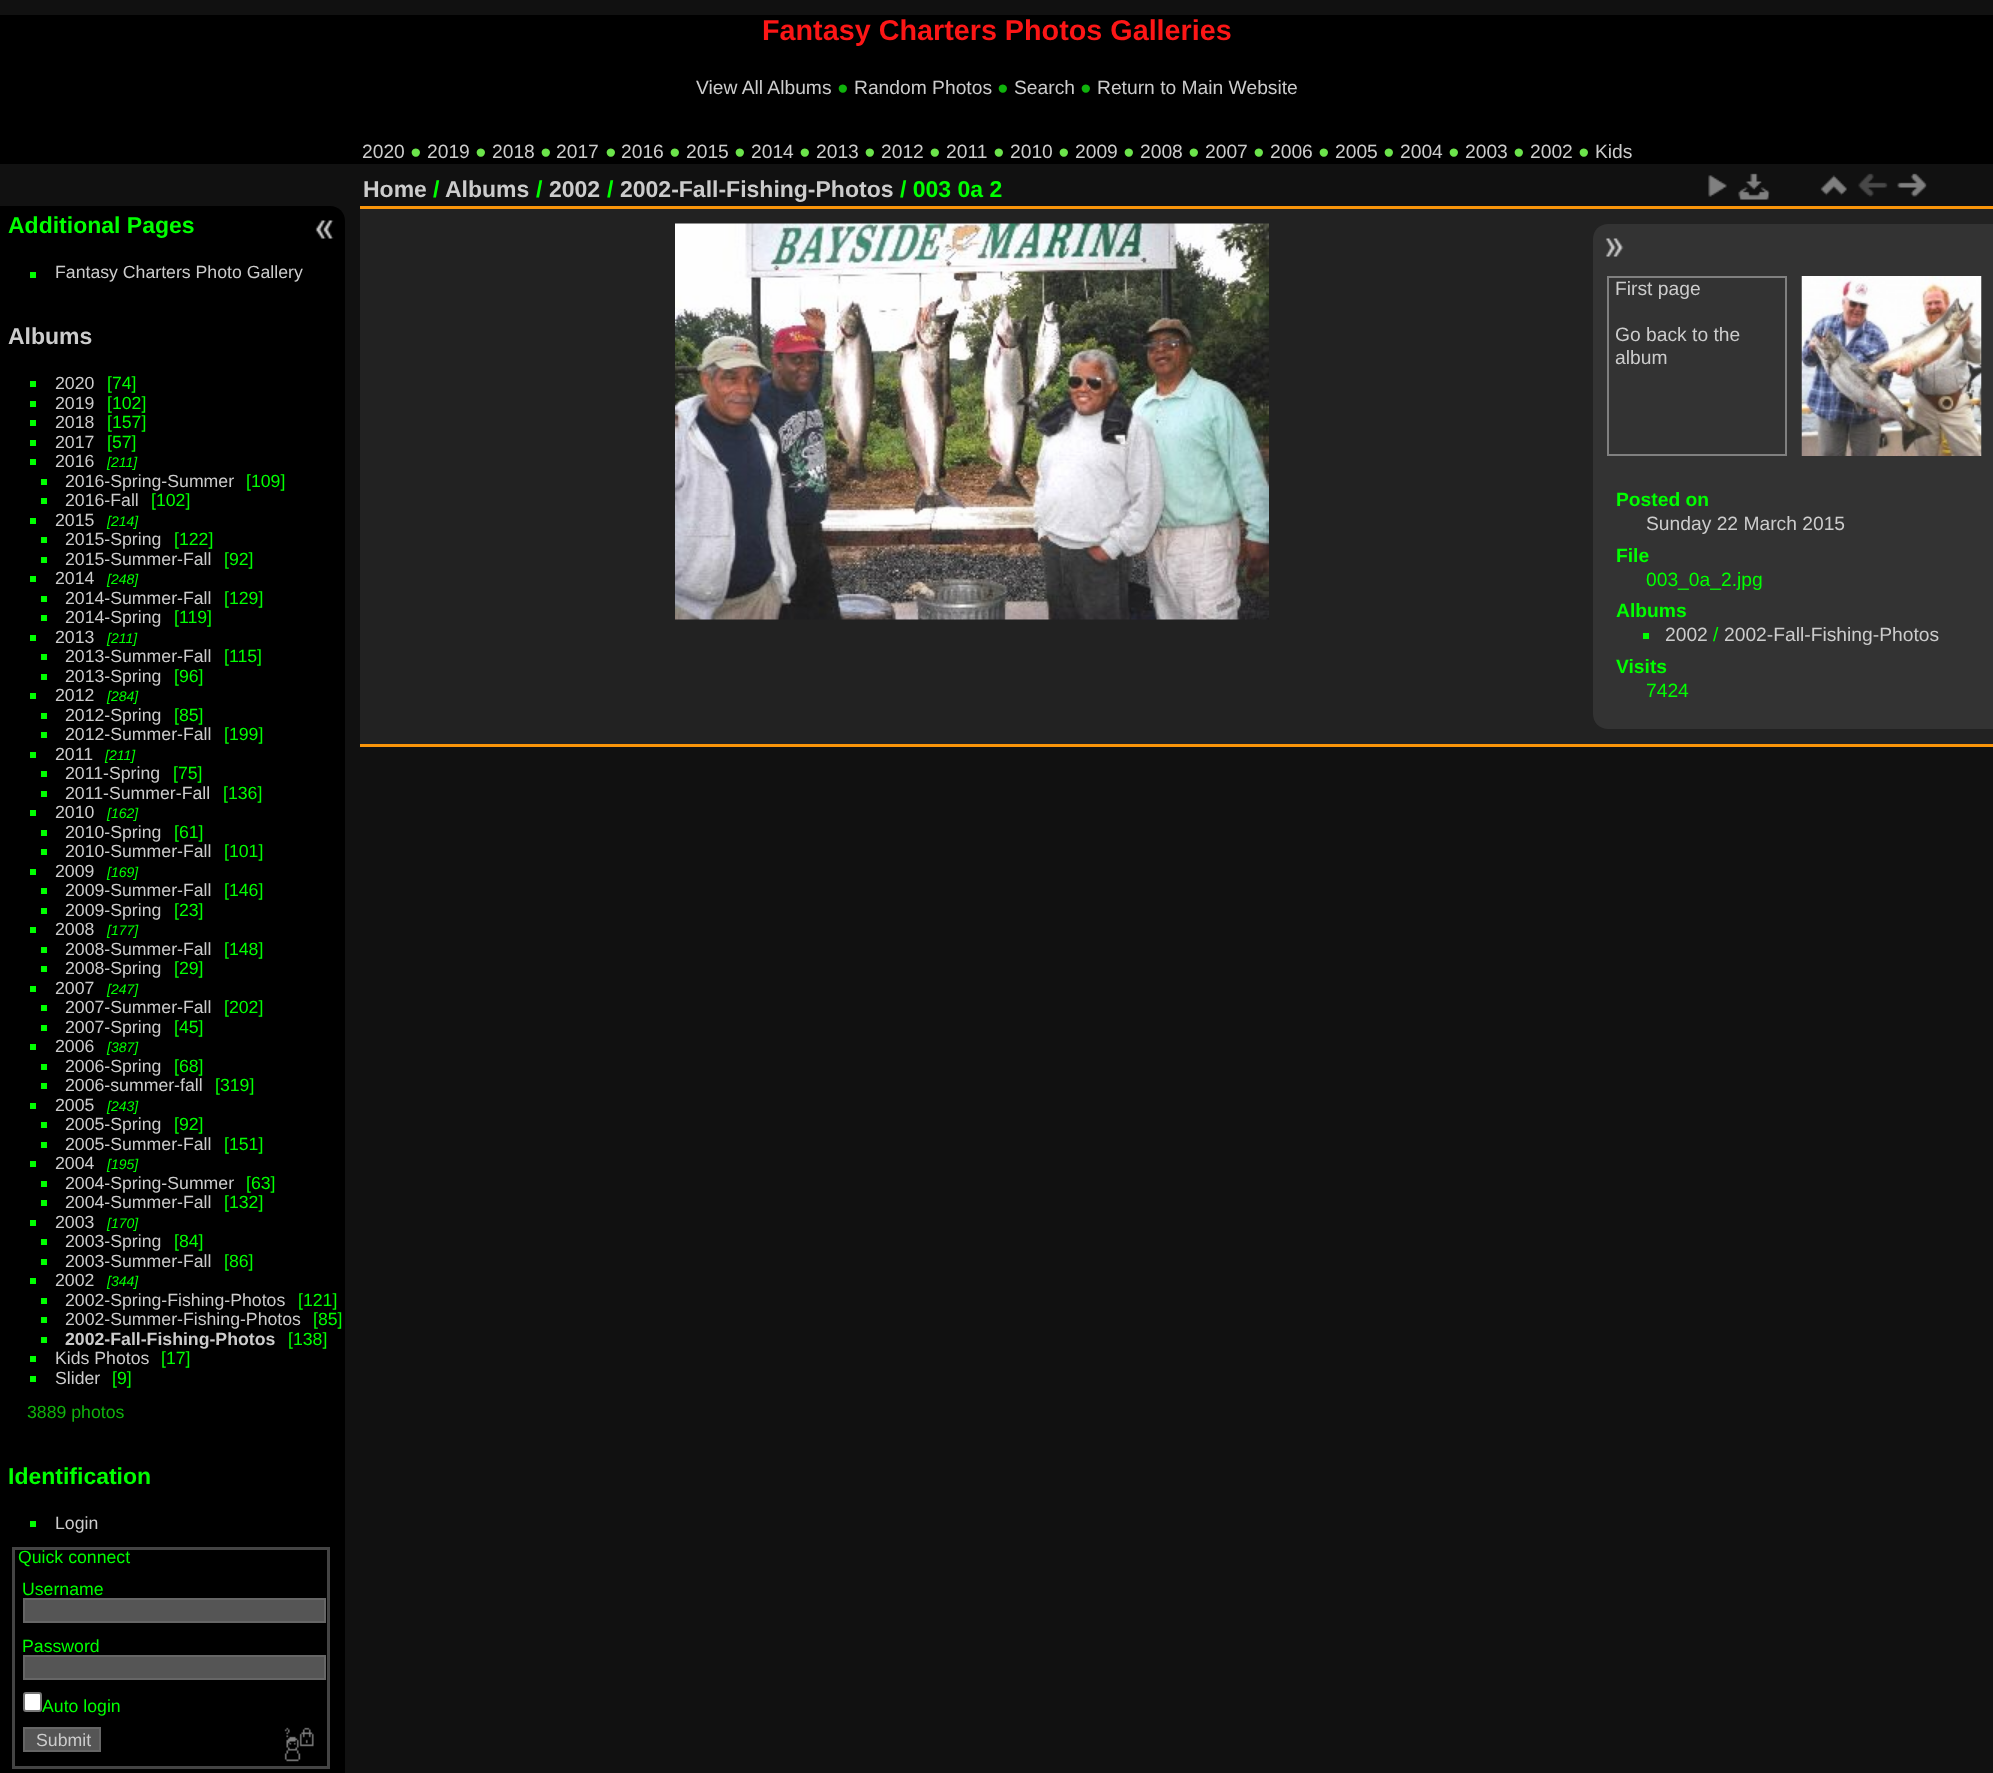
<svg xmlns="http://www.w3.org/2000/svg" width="1993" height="1773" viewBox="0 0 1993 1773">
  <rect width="100%" height="100%" fill="rgb(17,17,17)"/>
  <rect x="0" y="15" width="1993" height="149" fill="rgb(0,0,0)"/>
  <text x="762" y="40" font-family="Liberation Sans" font-size="28.75" font-weight="bold" fill="rgb(252,22,22)">Fantasy Charters Photos Galleries</text>
  <text x="696" y="94" font-family="Liberation Sans" font-size="19.25" fill="rgb(204,204,204)">View All Albums</text>
  <text x="837" y="94" font-family="Liberation Sans" font-size="19.25" fill="rgb(16,179,12)">●</text>
  <text x="854" y="94" font-family="Liberation Sans" font-size="19.25" fill="rgb(204,204,204)">Random Photos</text>
  <text x="997" y="94" font-family="Liberation Sans" font-size="19.25" fill="rgb(16,179,12)">●</text>
  <text x="1014" y="94" font-family="Liberation Sans" font-size="19.25" fill="rgb(204,204,204)">Search</text>
  <text x="1080" y="94" font-family="Liberation Sans" font-size="19.25" fill="rgb(16,179,12)">●</text>
  <g font-family="Liberation Sans" font-size="19.25" fill="rgb(204,204,204)">
    <text x="1097" y="94">Return to Main Website</text>
    <text x="362" y="158">2020</text>
  </g>
  <text x="410" y="158" font-family="Liberation Sans" font-size="19.25" fill="rgb(108,228,75)">●</text>
  <text x="427" y="158" font-family="Liberation Sans" font-size="19.25" fill="rgb(204,204,204)">2019</text>
  <text x="475" y="158" font-family="Liberation Sans" font-size="19.25" fill="rgb(108,228,75)">●</text>
  <text x="492" y="158" font-family="Liberation Sans" font-size="19.25" fill="rgb(204,204,204)">2018</text>
  <text x="540" y="158" font-family="Liberation Sans" font-size="19.25" fill="rgb(108,228,75)">●</text>
  <text x="556" y="158" font-family="Liberation Sans" font-size="19.25" fill="rgb(204,204,204)">2017</text>
  <text x="605" y="158" font-family="Liberation Sans" font-size="19.25" fill="rgb(108,228,75)">●</text>
  <text x="621" y="158" font-family="Liberation Sans" font-size="19.25" fill="rgb(204,204,204)">2016</text>
  <text x="669" y="158" font-family="Liberation Sans" font-size="19.25" fill="rgb(108,228,75)">●</text>
  <text x="686" y="158" font-family="Liberation Sans" font-size="19.25" fill="rgb(204,204,204)">2015</text>
  <text x="734" y="158" font-family="Liberation Sans" font-size="19.25" fill="rgb(108,228,75)">●</text>
  <text x="751" y="158" font-family="Liberation Sans" font-size="19.25" fill="rgb(204,204,204)">2014</text>
  <text x="799" y="158" font-family="Liberation Sans" font-size="19.25" fill="rgb(108,228,75)">●</text>
  <text x="816" y="158" font-family="Liberation Sans" font-size="19.25" fill="rgb(204,204,204)">2013</text>
  <text x="864" y="158" font-family="Liberation Sans" font-size="19.25" fill="rgb(108,228,75)">●</text>
  <text x="881" y="158" font-family="Liberation Sans" font-size="19.25" fill="rgb(204,204,204)">2012</text>
  <text x="929" y="158" font-family="Liberation Sans" font-size="19.25" fill="rgb(108,228,75)">●</text>
  <text x="946" y="158" font-family="Liberation Sans" font-size="19.25" fill="rgb(204,204,204)">2011</text>
  <text x="993" y="158" font-family="Liberation Sans" font-size="19.25" fill="rgb(108,228,75)">●</text>
  <text x="1010" y="158" font-family="Liberation Sans" font-size="19.25" fill="rgb(204,204,204)">2010</text>
  <text x="1058" y="158" font-family="Liberation Sans" font-size="19.25" fill="rgb(108,228,75)">●</text>
  <text x="1075" y="158" font-family="Liberation Sans" font-size="19.25" fill="rgb(204,204,204)">2009</text>
  <text x="1123" y="158" font-family="Liberation Sans" font-size="19.25" fill="rgb(108,228,75)">●</text>
  <text x="1140" y="158" font-family="Liberation Sans" font-size="19.25" fill="rgb(204,204,204)">2008</text>
  <text x="1188" y="158" font-family="Liberation Sans" font-size="19.25" fill="rgb(108,228,75)">●</text>
  <text x="1205" y="158" font-family="Liberation Sans" font-size="19.25" fill="rgb(204,204,204)">2007</text>
  <text x="1253" y="158" font-family="Liberation Sans" font-size="19.25" fill="rgb(108,228,75)">●</text>
  <text x="1270" y="158" font-family="Liberation Sans" font-size="19.25" fill="rgb(204,204,204)">2006</text>
  <text x="1318" y="158" font-family="Liberation Sans" font-size="19.25" fill="rgb(108,228,75)">●</text>
  <text x="1335" y="158" font-family="Liberation Sans" font-size="19.25" fill="rgb(204,204,204)">2005</text>
  <text x="1383" y="158" font-family="Liberation Sans" font-size="19.25" fill="rgb(108,228,75)">●</text>
  <text x="1400" y="158" font-family="Liberation Sans" font-size="19.25" fill="rgb(204,204,204)">2004</text>
  <text x="1448" y="158" font-family="Liberation Sans" font-size="19.25" fill="rgb(108,228,75)">●</text>
  <text x="1465" y="158" font-family="Liberation Sans" font-size="19.25" fill="rgb(204,204,204)">2003</text>
  <text x="1513" y="158" font-family="Liberation Sans" font-size="19.25" fill="rgb(108,228,75)">●</text>
  <text x="1530" y="158" font-family="Liberation Sans" font-size="19.25" fill="rgb(204,204,204)">2002</text>
  <text x="1578" y="158" font-family="Liberation Sans" font-size="19.25" fill="rgb(108,228,75)">●</text>
  <text x="1595" y="158" font-family="Liberation Sans" font-size="19.25" fill="rgb(204,204,204)">Kids</text>
  <path d="M0 206H330C338.5 206 345 212.5 345 221V1773C345 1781.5 338.5 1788 330 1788H0Z" fill="rgb(0,0,0)"/>
  <text x="8" y="233" font-family="Liberation Sans" font-size="23" font-weight="bold" fill="rgb(0,255,0)">Additional Pages</text>
  <rect x="30" y="272" width="6" height="6" fill="rgb(0,255,0)"/>
  <text x="55" y="278" font-family="Liberation Sans" font-size="17.7" fill="rgb(204,204,204)">Fantasy Charters Photo Gallery</text>
  <text x="8" y="344" font-family="Liberation Sans" font-size="23" font-weight="bold" fill="rgb(204,204,204)">Albums</text>
  <rect x="30" y="381" width="6" height="6" fill="rgb(0,255,0)"/>
  <text x="55" y="389" font-family="Liberation Sans" font-size="17.7" fill="rgb(204,204,204)">2020</text>
  <text x="107" y="389" font-family="Liberation Sans" font-size="17.7" fill="rgb(0,255,0)">[74]</text>
  <rect x="30" y="401" width="6" height="6" fill="rgb(0,255,0)"/>
  <text x="55" y="409" font-family="Liberation Sans" font-size="17.7" fill="rgb(204,204,204)">2019</text>
  <text x="107" y="409" font-family="Liberation Sans" font-size="17.7" fill="rgb(0,255,0)">[102]</text>
  <rect x="30" y="420" width="6" height="6" fill="rgb(0,255,0)"/>
  <text x="55" y="428" font-family="Liberation Sans" font-size="17.7" fill="rgb(204,204,204)">2018</text>
  <text x="107" y="428" font-family="Liberation Sans" font-size="17.7" fill="rgb(0,255,0)">[157]</text>
  <rect x="30" y="440" width="6" height="6" fill="rgb(0,255,0)"/>
  <text x="55" y="448" font-family="Liberation Sans" font-size="17.7" fill="rgb(204,204,204)">2017</text>
  <text x="107" y="448" font-family="Liberation Sans" font-size="17.7" fill="rgb(0,255,0)">[57]</text>
  <rect x="30" y="459" width="6" height="6" fill="rgb(0,255,0)"/>
  <text x="55" y="467" font-family="Liberation Sans" font-size="17.7" fill="rgb(204,204,204)">2016</text>
  <text x="107" y="467" font-family="Liberation Sans" font-size="14" font-style="italic" fill="rgb(0,255,0)">[211]</text>
  <rect x="41" y="479" width="6" height="6" fill="rgb(0,255,0)"/>
  <text x="65" y="487" font-family="Liberation Sans" font-size="17.7" fill="rgb(204,204,204)">2016-Spring-Summer</text>
  <text x="246" y="487" font-family="Liberation Sans" font-size="17.7" fill="rgb(0,255,0)">[109]</text>
  <rect x="41" y="498" width="6" height="6" fill="rgb(0,255,0)"/>
  <text x="65" y="506" font-family="Liberation Sans" font-size="17.7" fill="rgb(204,204,204)">2016-Fall</text>
  <text x="151" y="506" font-family="Liberation Sans" font-size="17.7" fill="rgb(0,255,0)">[102]</text>
  <rect x="30" y="518" width="6" height="6" fill="rgb(0,255,0)"/>
  <text x="55" y="526" font-family="Liberation Sans" font-size="17.7" fill="rgb(204,204,204)">2015</text>
  <text x="107" y="526" font-family="Liberation Sans" font-size="14" font-style="italic" fill="rgb(0,255,0)">[214]</text>
  <rect x="41" y="537" width="6" height="6" fill="rgb(0,255,0)"/>
  <text x="65" y="545" font-family="Liberation Sans" font-size="17.7" fill="rgb(204,204,204)">2015-Spring</text>
  <text x="174" y="545" font-family="Liberation Sans" font-size="17.7" fill="rgb(0,255,0)">[122]</text>
  <rect x="41" y="557" width="6" height="6" fill="rgb(0,255,0)"/>
  <text x="65" y="565" font-family="Liberation Sans" font-size="17.7" fill="rgb(204,204,204)">2015-Summer-Fall</text>
  <text x="224" y="565" font-family="Liberation Sans" font-size="17.7" fill="rgb(0,255,0)">[92]</text>
  <rect x="30" y="576" width="6" height="6" fill="rgb(0,255,0)"/>
  <text x="55" y="584" font-family="Liberation Sans" font-size="17.7" fill="rgb(204,204,204)">2014</text>
  <text x="107" y="584" font-family="Liberation Sans" font-size="14" font-style="italic" fill="rgb(0,255,0)">[248]</text>
  <rect x="41" y="596" width="6" height="6" fill="rgb(0,255,0)"/>
  <text x="65" y="604" font-family="Liberation Sans" font-size="17.7" fill="rgb(204,204,204)">2014-Summer-Fall</text>
  <text x="224" y="604" font-family="Liberation Sans" font-size="17.7" fill="rgb(0,255,0)">[129]</text>
  <rect x="41" y="615" width="6" height="6" fill="rgb(0,255,0)"/>
  <text x="65" y="623" font-family="Liberation Sans" font-size="17.7" fill="rgb(204,204,204)">2014-Spring</text>
  <text x="174" y="623" font-family="Liberation Sans" font-size="17.7" fill="rgb(0,255,0)">[119]</text>
  <rect x="30" y="635" width="6" height="6" fill="rgb(0,255,0)"/>
  <text x="55" y="643" font-family="Liberation Sans" font-size="17.7" fill="rgb(204,204,204)">2013</text>
  <text x="107" y="643" font-family="Liberation Sans" font-size="14" font-style="italic" fill="rgb(0,255,0)">[211]</text>
  <rect x="41" y="654" width="6" height="6" fill="rgb(0,255,0)"/>
  <text x="65" y="662" font-family="Liberation Sans" font-size="17.7" fill="rgb(204,204,204)">2013-Summer-Fall</text>
  <text x="224" y="662" font-family="Liberation Sans" font-size="17.7" fill="rgb(0,255,0)">[115]</text>
  <rect x="41" y="674" width="6" height="6" fill="rgb(0,255,0)"/>
  <text x="65" y="682" font-family="Liberation Sans" font-size="17.7" fill="rgb(204,204,204)">2013-Spring</text>
  <text x="174" y="682" font-family="Liberation Sans" font-size="17.7" fill="rgb(0,255,0)">[96]</text>
  <rect x="30" y="693" width="6" height="6" fill="rgb(0,255,0)"/>
  <text x="55" y="701" font-family="Liberation Sans" font-size="17.7" fill="rgb(204,204,204)">2012</text>
  <text x="107" y="701" font-family="Liberation Sans" font-size="14" font-style="italic" fill="rgb(0,255,0)">[284]</text>
  <rect x="41" y="713" width="6" height="6" fill="rgb(0,255,0)"/>
  <text x="65" y="721" font-family="Liberation Sans" font-size="17.7" fill="rgb(204,204,204)">2012-Spring</text>
  <text x="174" y="721" font-family="Liberation Sans" font-size="17.7" fill="rgb(0,255,0)">[85]</text>
  <rect x="41" y="732" width="6" height="6" fill="rgb(0,255,0)"/>
  <text x="65" y="740" font-family="Liberation Sans" font-size="17.7" fill="rgb(204,204,204)">2012-Summer-Fall</text>
  <text x="224" y="740" font-family="Liberation Sans" font-size="17.7" fill="rgb(0,255,0)">[199]</text>
  <rect x="30" y="752" width="6" height="6" fill="rgb(0,255,0)"/>
  <text x="55" y="760" font-family="Liberation Sans" font-size="17.7" fill="rgb(204,204,204)">2011</text>
  <text x="105" y="760" font-family="Liberation Sans" font-size="14" font-style="italic" fill="rgb(0,255,0)">[211]</text>
  <rect x="41" y="771" width="6" height="6" fill="rgb(0,255,0)"/>
  <text x="65" y="779" font-family="Liberation Sans" font-size="17.7" fill="rgb(204,204,204)">2011-Spring</text>
  <text x="173" y="779" font-family="Liberation Sans" font-size="17.7" fill="rgb(0,255,0)">[75]</text>
  <rect x="41" y="791" width="6" height="6" fill="rgb(0,255,0)"/>
  <text x="65" y="799" font-family="Liberation Sans" font-size="17.7" fill="rgb(204,204,204)">2011-Summer-Fall</text>
  <text x="223" y="799" font-family="Liberation Sans" font-size="17.7" fill="rgb(0,255,0)">[136]</text>
  <rect x="30" y="810" width="6" height="6" fill="rgb(0,255,0)"/>
  <text x="55" y="818" font-family="Liberation Sans" font-size="17.7" fill="rgb(204,204,204)">2010</text>
  <text x="107" y="818" font-family="Liberation Sans" font-size="14" font-style="italic" fill="rgb(0,255,0)">[162]</text>
  <rect x="41" y="830" width="6" height="6" fill="rgb(0,255,0)"/>
  <text x="65" y="838" font-family="Liberation Sans" font-size="17.7" fill="rgb(204,204,204)">2010-Spring</text>
  <text x="174" y="838" font-family="Liberation Sans" font-size="17.7" fill="rgb(0,255,0)">[61]</text>
  <rect x="41" y="849" width="6" height="6" fill="rgb(0,255,0)"/>
  <text x="65" y="857" font-family="Liberation Sans" font-size="17.7" fill="rgb(204,204,204)">2010-Summer-Fall</text>
  <text x="224" y="857" font-family="Liberation Sans" font-size="17.7" fill="rgb(0,255,0)">[101]</text>
  <rect x="30" y="869" width="6" height="6" fill="rgb(0,255,0)"/>
  <text x="55" y="877" font-family="Liberation Sans" font-size="17.7" fill="rgb(204,204,204)">2009</text>
  <text x="107" y="877" font-family="Liberation Sans" font-size="14" font-style="italic" fill="rgb(0,255,0)">[169]</text>
  <rect x="41" y="888" width="6" height="6" fill="rgb(0,255,0)"/>
  <text x="65" y="896" font-family="Liberation Sans" font-size="17.7" fill="rgb(204,204,204)">2009-Summer-Fall</text>
  <text x="224" y="896" font-family="Liberation Sans" font-size="17.7" fill="rgb(0,255,0)">[146]</text>
  <rect x="41" y="908" width="6" height="6" fill="rgb(0,255,0)"/>
  <text x="65" y="916" font-family="Liberation Sans" font-size="17.7" fill="rgb(204,204,204)">2009-Spring</text>
  <text x="174" y="916" font-family="Liberation Sans" font-size="17.7" fill="rgb(0,255,0)">[23]</text>
  <rect x="30" y="927" width="6" height="6" fill="rgb(0,255,0)"/>
  <text x="55" y="935" font-family="Liberation Sans" font-size="17.7" fill="rgb(204,204,204)">2008</text>
  <text x="107" y="935" font-family="Liberation Sans" font-size="14" font-style="italic" fill="rgb(0,255,0)">[177]</text>
  <rect x="41" y="947" width="6" height="6" fill="rgb(0,255,0)"/>
  <text x="65" y="955" font-family="Liberation Sans" font-size="17.7" fill="rgb(204,204,204)">2008-Summer-Fall</text>
  <text x="224" y="955" font-family="Liberation Sans" font-size="17.7" fill="rgb(0,255,0)">[148]</text>
  <rect x="41" y="966" width="6" height="6" fill="rgb(0,255,0)"/>
  <text x="65" y="974" font-family="Liberation Sans" font-size="17.7" fill="rgb(204,204,204)">2008-Spring</text>
  <text x="174" y="974" font-family="Liberation Sans" font-size="17.7" fill="rgb(0,255,0)">[29]</text>
  <rect x="30" y="986" width="6" height="6" fill="rgb(0,255,0)"/>
  <text x="55" y="994" font-family="Liberation Sans" font-size="17.7" fill="rgb(204,204,204)">2007</text>
  <text x="107" y="994" font-family="Liberation Sans" font-size="14" font-style="italic" fill="rgb(0,255,0)">[247]</text>
  <rect x="41" y="1005" width="6" height="6" fill="rgb(0,255,0)"/>
  <text x="65" y="1013" font-family="Liberation Sans" font-size="17.7" fill="rgb(204,204,204)">2007-Summer-Fall</text>
  <text x="224" y="1013" font-family="Liberation Sans" font-size="17.7" fill="rgb(0,255,0)">[202]</text>
  <rect x="41" y="1025" width="6" height="6" fill="rgb(0,255,0)"/>
  <text x="65" y="1033" font-family="Liberation Sans" font-size="17.7" fill="rgb(204,204,204)">2007-Spring</text>
  <text x="174" y="1033" font-family="Liberation Sans" font-size="17.7" fill="rgb(0,255,0)">[45]</text>
  <rect x="30" y="1044" width="6" height="6" fill="rgb(0,255,0)"/>
  <text x="55" y="1052" font-family="Liberation Sans" font-size="17.7" fill="rgb(204,204,204)">2006</text>
  <text x="107" y="1052" font-family="Liberation Sans" font-size="14" font-style="italic" fill="rgb(0,255,0)">[387]</text>
  <rect x="41" y="1064" width="6" height="6" fill="rgb(0,255,0)"/>
  <text x="65" y="1072" font-family="Liberation Sans" font-size="17.7" fill="rgb(204,204,204)">2006-Spring</text>
  <text x="174" y="1072" font-family="Liberation Sans" font-size="17.7" fill="rgb(0,255,0)">[68]</text>
  <rect x="41" y="1083" width="6" height="6" fill="rgb(0,255,0)"/>
  <text x="65" y="1091" font-family="Liberation Sans" font-size="17.7" fill="rgb(204,204,204)">2006-summer-fall</text>
  <text x="215" y="1091" font-family="Liberation Sans" font-size="17.7" fill="rgb(0,255,0)">[319]</text>
  <rect x="30" y="1103" width="6" height="6" fill="rgb(0,255,0)"/>
  <text x="55" y="1111" font-family="Liberation Sans" font-size="17.7" fill="rgb(204,204,204)">2005</text>
  <text x="107" y="1111" font-family="Liberation Sans" font-size="14" font-style="italic" fill="rgb(0,255,0)">[243]</text>
  <rect x="41" y="1122" width="6" height="6" fill="rgb(0,255,0)"/>
  <text x="65" y="1130" font-family="Liberation Sans" font-size="17.7" fill="rgb(204,204,204)">2005-Spring</text>
  <text x="174" y="1130" font-family="Liberation Sans" font-size="17.7" fill="rgb(0,255,0)">[92]</text>
  <rect x="41" y="1142" width="6" height="6" fill="rgb(0,255,0)"/>
  <text x="65" y="1150" font-family="Liberation Sans" font-size="17.7" fill="rgb(204,204,204)">2005-Summer-Fall</text>
  <text x="224" y="1150" font-family="Liberation Sans" font-size="17.7" fill="rgb(0,255,0)">[151]</text>
  <rect x="30" y="1161" width="6" height="6" fill="rgb(0,255,0)"/>
  <text x="55" y="1169" font-family="Liberation Sans" font-size="17.7" fill="rgb(204,204,204)">2004</text>
  <text x="107" y="1169" font-family="Liberation Sans" font-size="14" font-style="italic" fill="rgb(0,255,0)">[195]</text>
  <rect x="41" y="1181" width="6" height="6" fill="rgb(0,255,0)"/>
  <text x="65" y="1189" font-family="Liberation Sans" font-size="17.7" fill="rgb(204,204,204)">2004-Spring-Summer</text>
  <text x="246" y="1189" font-family="Liberation Sans" font-size="17.7" fill="rgb(0,255,0)">[63]</text>
  <rect x="41" y="1200" width="6" height="6" fill="rgb(0,255,0)"/>
  <text x="65" y="1208" font-family="Liberation Sans" font-size="17.7" fill="rgb(204,204,204)">2004-Summer-Fall</text>
  <text x="224" y="1208" font-family="Liberation Sans" font-size="17.7" fill="rgb(0,255,0)">[132]</text>
  <rect x="30" y="1220" width="6" height="6" fill="rgb(0,255,0)"/>
  <text x="55" y="1228" font-family="Liberation Sans" font-size="17.7" fill="rgb(204,204,204)">2003</text>
  <text x="107" y="1228" font-family="Liberation Sans" font-size="14" font-style="italic" fill="rgb(0,255,0)">[170]</text>
  <rect x="41" y="1239" width="6" height="6" fill="rgb(0,255,0)"/>
  <text x="65" y="1247" font-family="Liberation Sans" font-size="17.7" fill="rgb(204,204,204)">2003-Spring</text>
  <text x="174" y="1247" font-family="Liberation Sans" font-size="17.7" fill="rgb(0,255,0)">[84]</text>
  <rect x="41" y="1259" width="6" height="6" fill="rgb(0,255,0)"/>
  <text x="65" y="1267" font-family="Liberation Sans" font-size="17.7" fill="rgb(204,204,204)">2003-Summer-Fall</text>
  <text x="224" y="1267" font-family="Liberation Sans" font-size="17.7" fill="rgb(0,255,0)">[86]</text>
  <rect x="30" y="1278" width="6" height="6" fill="rgb(0,255,0)"/>
  <text x="55" y="1286" font-family="Liberation Sans" font-size="17.7" fill="rgb(204,204,204)">2002</text>
  <text x="107" y="1286" font-family="Liberation Sans" font-size="14" font-style="italic" fill="rgb(0,255,0)">[344]</text>
  <rect x="41" y="1298" width="6" height="6" fill="rgb(0,255,0)"/>
  <text x="65" y="1306" font-family="Liberation Sans" font-size="17.7" fill="rgb(204,204,204)">2002-Spring-Fishing-Photos</text>
  <text x="298" y="1306" font-family="Liberation Sans" font-size="17.7" fill="rgb(0,255,0)">[121]</text>
  <rect x="41" y="1317" width="6" height="6" fill="rgb(0,255,0)"/>
  <text x="65" y="1325" font-family="Liberation Sans" font-size="17.7" fill="rgb(204,204,204)">2002-Summer-Fishing-Photos</text>
  <text x="313" y="1325" font-family="Liberation Sans" font-size="17.7" fill="rgb(0,255,0)">[85]</text>
  <rect x="41" y="1337" width="6" height="6" fill="rgb(0,255,0)"/>
  <text x="65" y="1345" font-family="Liberation Sans" font-size="17.7" font-weight="bold" fill="rgb(204,204,204)">2002-Fall-Fishing-Photos</text>
  <text x="288" y="1345" font-family="Liberation Sans" font-size="17.7" fill="rgb(0,255,0)">[138]</text>
  <rect x="30" y="1356" width="6" height="6" fill="rgb(0,255,0)"/>
  <text x="55" y="1364" font-family="Liberation Sans" font-size="17.7" fill="rgb(204,204,204)">Kids Photos</text>
  <text x="161" y="1364" font-family="Liberation Sans" font-size="17.7" fill="rgb(0,255,0)">[17]</text>
  <rect x="30" y="1376" width="6" height="6" fill="rgb(0,255,0)"/>
  <text x="55" y="1384" font-family="Liberation Sans" font-size="17.7" fill="rgb(204,204,204)">Slider</text>
  <text x="112" y="1384" font-family="Liberation Sans" font-size="17.7" fill="rgb(0,255,0)">[9]</text>
  <text x="27" y="1418" font-family="Liberation Sans" font-size="17.7" fill="rgb(16,179,12)">3889 photos</text>
  <text x="8" y="1484" font-family="Liberation Sans" font-size="23" font-weight="bold" fill="rgb(0,255,0)">Identification</text>
  <rect x="30" y="1521" width="6" height="6" fill="rgb(0,255,0)"/>
  <text x="55" y="1529" font-family="Liberation Sans" font-size="17.7" fill="rgb(204,204,204)">Login</text>
  <rect x="13.5" y="1548.5" width="315" height="219" fill="none" stroke="rgb(68,68,68)" stroke-width="3"/>
  <g font-family="Liberation Sans" font-size="17.7" fill="rgb(0,255,0)">
    <text x="18" y="1563">Quick connect</text>
    <text x="22" y="1595">Username</text>
  </g>
  <rect x="24" y="1599" width="301" height="23" fill="rgb(85,85,85)" stroke="rgb(102,102,102)" stroke-width="2"/>
  <text x="22" y="1652" font-family="Liberation Sans" font-size="17.7" fill="rgb(0,255,0)">Password</text>
  <rect x="24" y="1656" width="301" height="23" fill="rgb(85,85,85)" stroke="rgb(102,102,102)" stroke-width="2"/>
  <rect x="24" y="1693" width="17" height="18" rx="2" fill="rgb(255,255,255)" stroke="rgb(118,118,118)" stroke-width="2"/>
  <text x="42" y="1712" font-family="Liberation Sans" font-size="17.7" fill="rgb(0,255,0)">Auto login</text>
  <rect x="24" y="1728" width="76" height="23" fill="rgb(85,85,85)" stroke="rgb(102,102,102)" stroke-width="2"/>
  <text x="36" y="1746" font-family="Liberation Sans" font-size="17.7" fill="rgb(204,204,204)">Submit</text>
  <image x="284" y="1727" width="30" height="35" href="pic1.png"/>
  <rect x="360" y="209" width="1633" height="535" fill="rgb(34,34,34)"/>
  <rect x="360" y="744" width="1633" height="3" fill="rgb(250,149,10)"/>
  <rect x="360" y="206" width="1633" height="3" fill="rgb(250,149,10)"/>
  <text x="363" y="197" font-family="Liberation Sans" font-size="23" font-weight="bold" fill="rgb(204,204,204)">Home</text>
  <text x="433" y="197" font-family="Liberation Sans" font-size="23" font-weight="bold" fill="rgb(0,255,0)">/</text>
  <text x="445" y="197" font-family="Liberation Sans" font-size="23" font-weight="bold" fill="rgb(204,204,204)">Albums</text>
  <text x="536" y="197" font-family="Liberation Sans" font-size="23" font-weight="bold" fill="rgb(0,255,0)">/</text>
  <text x="549" y="197" font-family="Liberation Sans" font-size="23" font-weight="bold" fill="rgb(204,204,204)">2002</text>
  <text x="607" y="197" font-family="Liberation Sans" font-size="23" font-weight="bold" fill="rgb(0,255,0)">/</text>
  <text x="620" y="197" font-family="Liberation Sans" font-size="23" font-weight="bold" fill="rgb(204,204,204)">2002-Fall-Fishing-Photos</text>
  <text x="900" y="197" font-family="Liberation Sans" font-size="23" font-weight="bold" fill="rgb(0,255,0)">/ 003 0a 2</text>
  <image x="1708" y="175" width="19" height="22" href="pic2.png"/>
  <image x="1738" y="173" width="32" height="27" href="pic3.png"/>
  <image x="1820" y="175" width="27" height="21" href="pic4.png"/>
  <image x="1858" y="173" width="30" height="24" href="pic5.png"/>
  <image x="1897" y="173" width="30" height="24" href="pic6.png"/>
  <image x="675" y="223" width="594" height="397" href="pic7.png"/>
  <path d="M1608 224H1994V729H1608C1599.5 729 1593 722.5 1593 714V239C1593 230.5 1599.5 224 1608 224Z" fill="rgb(51,51,51)"/>
  <image x="1605" y="238" width="19" height="19" href="pic8.png"/>
  <rect x="1608" y="277" width="178" height="178" fill="none" stroke="rgb(128,128,128)" stroke-width="2"/>
  <g font-family="Liberation Sans" font-size="19.25" fill="rgb(204,204,204)">
    <text x="1615" y="295">First page</text>
    <text>
      <tspan x="1615" y="341">Go back to the</tspan>
      <tspan x="1615" y="364">album</tspan>
    </text>
  </g>
  <image x="1801" y="276" width="181" height="180" href="pic9.png"/>
  <text x="1616" y="506" font-family="Liberation Sans" font-size="19.25" font-weight="bold" fill="rgb(0,255,0)">Posted on</text>
  <text x="1646" y="530" font-family="Liberation Sans" font-size="19.25" fill="rgb(204,204,204)">Sunday 22 March 2015</text>
  <text x="1616" y="562" font-family="Liberation Sans" font-size="19.25" font-weight="bold" fill="rgb(0,255,0)">File</text>
  <text x="1646" y="586" font-family="Liberation Sans" font-size="19.25" fill="rgb(0,255,0)">003_0a_2.jpg</text>
  <text x="1616" y="617" font-family="Liberation Sans" font-size="19.25" font-weight="bold" fill="rgb(0,255,0)">Albums</text>
  <rect x="1643" y="633" width="6" height="6" fill="rgb(0,255,0)"/>
  <text x="1665" y="641" font-family="Liberation Sans" font-size="19.25" fill="rgb(204,204,204)">2002</text>
  <text x="1713" y="641" font-family="Liberation Sans" font-size="19.25" fill="rgb(0,255,0)">/</text>
  <text x="1724" y="641" font-family="Liberation Sans" font-size="19.25" fill="rgb(204,204,204)">2002-Fall-Fishing-Photos</text>
  <text x="1616" y="673" font-family="Liberation Sans" font-size="19.25" font-weight="bold" fill="rgb(0,255,0)">Visits</text>
  <text x="1646" y="697" font-family="Liberation Sans" font-size="19.25" fill="rgb(0,255,0)">7424</text>
  <image x="315" y="220" width="19" height="19" href="pic10.png"/>
</svg>
